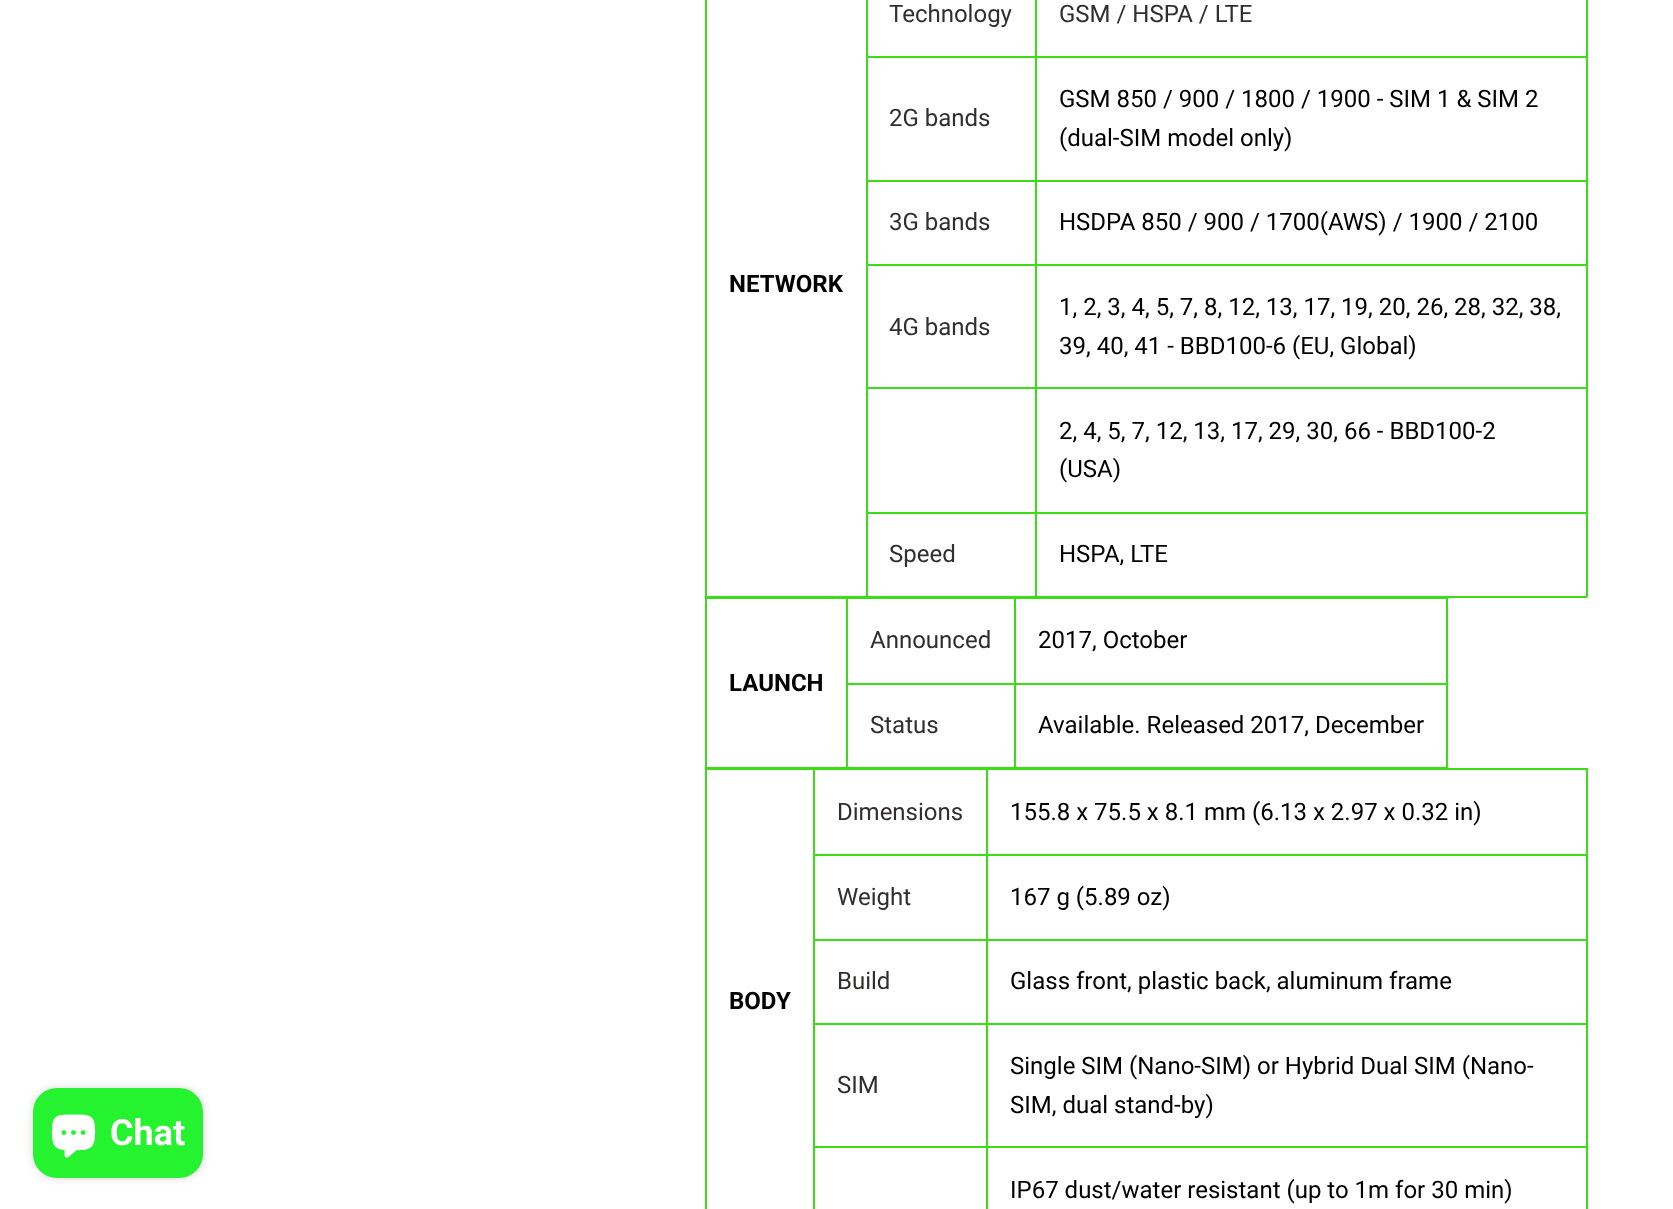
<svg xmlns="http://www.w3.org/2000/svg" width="1673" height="1209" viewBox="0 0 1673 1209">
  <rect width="100%" height="100%" fill="rgb(255,255,255)"/>
  <rect x="33" y="1088" width="170" height="90" rx="24" fill="rgba(0,0,0,0.15)" filter="blur(4px)"/>
  <rect x="33" y="1088" width="170" height="90" rx="24" fill="rgb(38,243,48)"/>
  <image x="51" y="1114" width="45" height="44" href="pic1.png"/>
  <text x="110" y="1145" font-family="Roboto" font-size="36" font-weight="bold" fill="rgb(255,255,255)">Chat</text>
  <text x="889" y="22" font-family="Roboto" font-size="24" fill="rgb(48,47,46)">Technology</text>
  <rect x="1035" y="56" width="552" height="2" fill="rgb(58,221,22)"/>
  <rect x="1035" y="180" width="552" height="2" fill="rgb(58,221,22)"/>
  <rect x="1035" y="264" width="552" height="2" fill="rgb(58,221,22)"/>
  <rect x="1035" y="387" width="552" height="2" fill="rgb(58,221,22)"/>
  <rect x="1035" y="512" width="552" height="2" fill="rgb(58,221,22)"/>
  <rect x="1586" y="512" width="2" height="85" fill="rgb(58,221,22)"/>
  <rect x="1035" y="596" width="552" height="2" fill="rgb(58,221,22)"/>
  <rect x="1035" y="512" width="2" height="85" fill="rgb(58,221,22)"/>
  <rect x="866" y="512" width="171" height="2" fill="rgb(58,221,22)"/>
  <rect x="1035" y="387" width="2" height="126" fill="rgb(58,221,22)"/>
  <rect x="866" y="387" width="171" height="2" fill="rgb(58,221,22)"/>
  <rect x="1035" y="264" width="2" height="125" fill="rgb(58,221,22)"/>
  <rect x="866" y="264" width="171" height="2" fill="rgb(58,221,22)"/>
  <rect x="1035" y="180" width="2" height="86" fill="rgb(58,221,22)"/>
  <rect x="866" y="180" width="171" height="2" fill="rgb(58,221,22)"/>
  <rect x="1035" y="56" width="2" height="126" fill="rgb(58,221,22)"/>
  <rect x="866" y="56" width="171" height="2" fill="rgb(58,221,22)"/>
  <rect x="1035" y="0" width="2" height="57" fill="rgb(58,221,22)"/>
  <text x="1059" y="22" font-family="Roboto" font-size="24" fill="rgb(48,47,46)">GSM / HSPA / LTE</text>
  <rect x="866" y="596" width="171" height="1" fill="rgb(58,221,22)"/>
  <rect x="866" y="512" width="2" height="85" fill="rgb(58,221,22)"/>
  <rect x="705" y="596" width="162" height="1" fill="rgb(58,221,22)"/>
  <rect x="705" y="0" width="2" height="597" fill="rgb(58,221,22)"/>
  <text x="729" y="292" font-family="Roboto" font-size="24" font-weight="bold" fill="rgb(0,0,0)">NETWORK</text>
  <rect x="866" y="387" width="2" height="126" fill="rgb(58,221,22)"/>
  <rect x="866" y="264" width="2" height="125" fill="rgb(58,221,22)"/>
  <rect x="866" y="180" width="2" height="86" fill="rgb(58,221,22)"/>
  <rect x="866" y="0" width="2" height="182" fill="rgb(58,221,22)"/>
  <text x="889" y="126" font-family="Roboto" font-size="24" fill="rgb(48,47,46)">2G bands</text>
  <rect x="1586" y="387" width="2" height="126" fill="rgb(58,221,22)"/>
  <rect x="1586" y="264" width="2" height="125" fill="rgb(58,221,22)"/>
  <rect x="1586" y="180" width="2" height="86" fill="rgb(58,221,22)"/>
  <rect x="1586" y="0" width="2" height="182" fill="rgb(58,221,22)"/>
  <g font-family="Roboto" font-size="24" fill="rgb(0,0,0)">
    <text>
      <tspan x="1059" y="107">GSM 850 / 900 / 1800 / 1900 - SIM 1 &amp; SIM 2</tspan>
      <tspan x="1059" y="146">(dual-SIM model only)</tspan>
    </text>
  </g>
  <text x="889" y="230" font-family="Roboto" font-size="24" fill="rgb(48,47,46)">3G bands</text>
  <text x="1059" y="230" font-family="Roboto" font-size="24" fill="rgb(0,0,0)">HSDPA 850 / 900 / 1700(AWS) / 1900 / 2100</text>
  <text x="889" y="335" font-family="Roboto" font-size="24" fill="rgb(48,47,46)">4G bands</text>
  <g font-family="Roboto" font-size="24" fill="rgb(0,0,0)">
    <text>
      <tspan x="1059" y="315">1, 2, 3, 4, 5, 7, 8, 12, 13, 17, 19, 20, 26, 28, 32, 38,</tspan>
      <tspan x="1059" y="354">39, 40, 41 - BBD100-6 (EU, Global)</tspan>
    </text>
    <text>
      <tspan x="1059" y="439">2, 4, 5, 7, 12, 13, 17, 29, 30, 66 - BBD100-2</tspan>
      <tspan x="1059" y="477">(USA)</tspan>
    </text>
  </g>
  <text x="889" y="562" font-family="Roboto" font-size="24" fill="rgb(48,47,46)">Speed</text>
  <text x="1059" y="562" font-family="Roboto" font-size="24" fill="rgb(0,0,0)">HSPA, LTE</text>
  <rect x="1014" y="597" width="434" height="2" fill="rgb(58,221,22)"/>
  <rect x="1014" y="683" width="434" height="2" fill="rgb(58,221,22)"/>
  <rect x="1446" y="683" width="2" height="85" fill="rgb(58,221,22)"/>
  <rect x="1014" y="767" width="434" height="1" fill="rgb(58,221,22)"/>
  <rect x="1014" y="683" width="2" height="85" fill="rgb(58,221,22)"/>
  <rect x="846" y="683" width="170" height="2" fill="rgb(58,221,22)"/>
  <rect x="1014" y="597" width="2" height="87" fill="rgb(58,221,22)"/>
  <rect x="846" y="597" width="170" height="2" fill="rgb(58,221,22)"/>
  <rect x="846" y="767" width="170" height="1" fill="rgb(58,221,22)"/>
  <rect x="846" y="683" width="2" height="85" fill="rgb(58,221,22)"/>
  <rect x="846" y="597" width="2" height="87" fill="rgb(58,221,22)"/>
  <text x="870" y="648" font-family="Roboto" font-size="24" fill="rgb(48,47,46)">Announced</text>
  <rect x="1446" y="597" width="2" height="87" fill="rgb(58,221,22)"/>
  <text x="1038" y="648" font-family="Roboto" font-size="24" fill="rgb(0,0,0)">2017, October</text>
  <rect x="705" y="597" width="143" height="2" fill="rgb(58,221,22)"/>
  <rect x="705" y="767" width="143" height="1" fill="rgb(58,221,22)"/>
  <rect x="705" y="597" width="2" height="171" fill="rgb(58,221,22)"/>
  <text x="729" y="691" font-family="Roboto" font-size="24" font-weight="bold" fill="rgb(0,0,0)">LAUNCH</text>
  <text x="870" y="733" font-family="Roboto" font-size="24" fill="rgb(48,47,46)">Status</text>
  <text x="1038" y="733" font-family="Roboto" font-size="24" fill="rgb(0,0,0)">Available. Released 2017, December</text>
  <rect x="986" y="768" width="601" height="2" fill="rgb(58,221,22)"/>
  <rect x="986" y="854" width="601" height="2" fill="rgb(58,221,22)"/>
  <rect x="986" y="939" width="601" height="2" fill="rgb(58,221,22)"/>
  <rect x="986" y="1023" width="601" height="2" fill="rgb(58,221,22)"/>
  <rect x="986" y="1146" width="601" height="2" fill="rgb(58,221,22)"/>
  <rect x="986" y="1146" width="2" height="63" fill="rgb(58,221,22)"/>
  <rect x="813" y="1146" width="174" height="2" fill="rgb(58,221,22)"/>
  <rect x="986" y="1023" width="2" height="125" fill="rgb(58,221,22)"/>
  <rect x="813" y="1023" width="174" height="2" fill="rgb(58,221,22)"/>
  <rect x="986" y="939" width="2" height="86" fill="rgb(58,221,22)"/>
  <rect x="813" y="939" width="174" height="2" fill="rgb(58,221,22)"/>
  <rect x="986" y="854" width="2" height="87" fill="rgb(58,221,22)"/>
  <rect x="813" y="854" width="174" height="2" fill="rgb(58,221,22)"/>
  <rect x="986" y="768" width="2" height="87" fill="rgb(58,221,22)"/>
  <rect x="813" y="768" width="174" height="2" fill="rgb(58,221,22)"/>
  <rect x="813" y="1146" width="2" height="63" fill="rgb(58,221,22)"/>
  <rect x="813" y="1023" width="2" height="125" fill="rgb(58,221,22)"/>
  <rect x="813" y="939" width="2" height="86" fill="rgb(58,221,22)"/>
  <rect x="813" y="854" width="2" height="87" fill="rgb(58,221,22)"/>
  <rect x="813" y="768" width="2" height="87" fill="rgb(58,221,22)"/>
  <text x="837" y="820" font-family="Roboto" font-size="24" fill="rgb(48,47,46)">Dimensions</text>
  <rect x="1586" y="1146" width="2" height="63" fill="rgb(58,221,22)"/>
  <rect x="1586" y="1023" width="2" height="125" fill="rgb(58,221,22)"/>
  <rect x="1586" y="939" width="2" height="86" fill="rgb(58,221,22)"/>
  <rect x="1586" y="854" width="2" height="87" fill="rgb(58,221,22)"/>
  <rect x="1586" y="768" width="2" height="87" fill="rgb(58,221,22)"/>
  <text x="1010" y="820" font-family="Roboto" font-size="24" fill="rgb(0,0,0)">155.8 x 75.5 x 8.1 mm (6.13 x 2.97 x 0.32 in)</text>
  <rect x="705" y="768" width="110" height="2" fill="rgb(58,221,22)"/>
  <rect x="705" y="768" width="2" height="441" fill="rgb(58,221,22)"/>
  <text x="729" y="1009" font-family="Roboto" font-size="24" font-weight="bold" fill="rgb(0,0,0)">BODY</text>
  <text x="837" y="905" font-family="Roboto" font-size="24" fill="rgb(48,47,46)">Weight</text>
  <text x="1010" y="905" font-family="Roboto" font-size="24" fill="rgb(0,0,0)">167 g (5.89 oz)</text>
  <text x="837" y="989" font-family="Roboto" font-size="24" fill="rgb(48,47,46)">Build</text>
  <text x="1010" y="989" font-family="Roboto" font-size="24" fill="rgb(0,0,0)">Glass front, plastic back, aluminum frame</text>
  <text x="837" y="1093" font-family="Roboto" font-size="24" fill="rgb(48,47,46)">SIM</text>
  <g font-family="Roboto" font-size="24" fill="rgb(0,0,0)">
    <text>
      <tspan x="1010" y="1074">Single SIM (Nano-SIM) or Hybrid Dual SIM (Nano-</tspan>
      <tspan x="1010" y="1113">SIM, dual stand-by)</tspan>
    </text>
    <text x="1010" y="1198">IP67 dust/water resistant (up to 1m for 30 min)</text>
  </g>
</svg>
